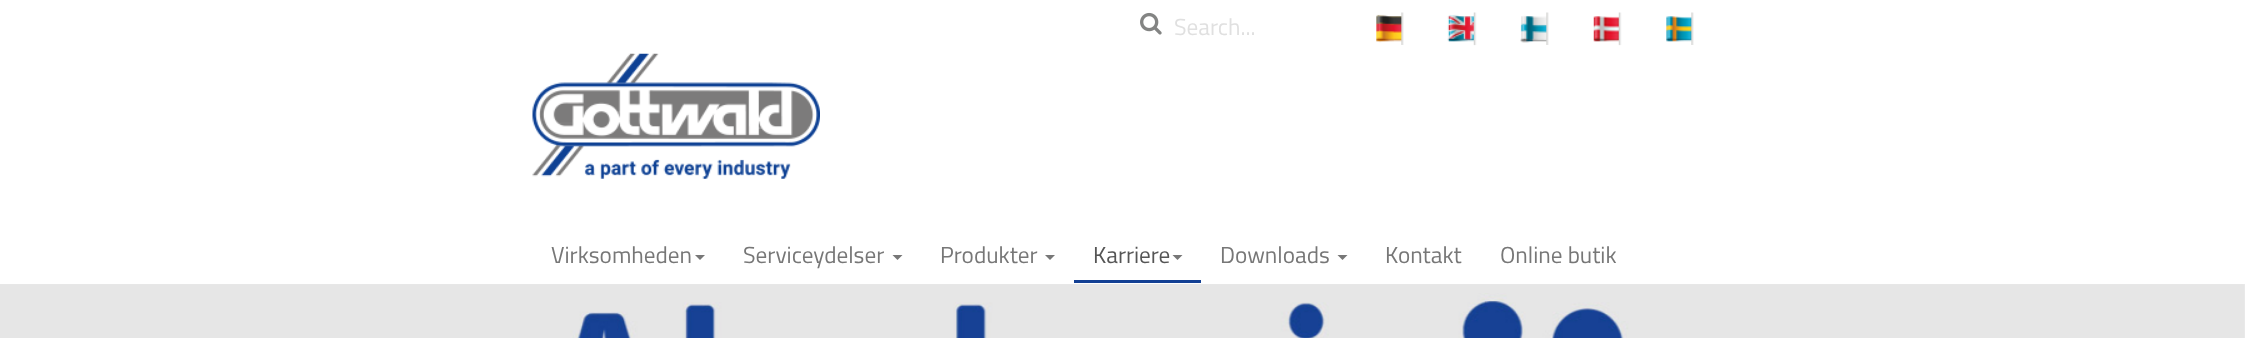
<svg xmlns="http://www.w3.org/2000/svg" width="2245" height="338" viewBox="0 0 2245 338">
  <rect width="100%" height="100%" fill="rgb(255,255,255)"/>
  <image x="1140" y="12" width="22" height="23" href="pic1.png"/>
  <text x="1174" y="35" font-family="Titillium Web" font-size="23.25" fill="rgb(224,224,224)">Search...</text>
  <image x="1376" y="12" width="28" height="33" href="pic2.png"/>
  <image x="1447" y="12" width="30" height="34" href="pic3.png"/>
  <image x="1520" y="12" width="29" height="33" href="pic4.png"/>
  <image x="1593" y="12" width="29" height="34" href="pic5.png"/>
  <image x="1666" y="12" width="28" height="33" href="pic6.png"/>
  <image x="532" y="53" width="288" height="126" href="pic7.png"/>
  <text x="551" y="263" font-family="Titillium Web" font-size="23.25" fill="rgb(119,119,119)">Virksomheden</text>
  <path d="M695 255H705L700 260Z" fill="rgb(119,119,119)"/>
  <text x="743" y="263" font-family="Titillium Web" font-size="23.25" fill="rgb(119,119,119)">Serviceydelser</text>
  <path d="M892.5 255H902.5L897.5 260Z" fill="rgb(119,119,119)"/>
  <text x="940" y="263" font-family="Titillium Web" font-size="23.25" fill="rgb(119,119,119)">Produkter</text>
  <path d="M1045 255H1055L1050 260Z" fill="rgb(119,119,119)"/>
  <rect x="1074" y="280" width="127" height="3" fill="rgb(19,64,148)"/>
  <text x="1093" y="263" font-family="Titillium Web" font-size="23.25" fill="rgb(85,85,85)">Karriere</text>
  <path d="M1172.5 255H1182.5L1177.5 260Z" fill="rgb(119,119,119)"/>
  <text x="1220" y="263" font-family="Titillium Web" font-size="23.25" fill="rgb(119,119,119)">Downloads</text>
  <path d="M1337.5 255H1347.5L1342.5 260Z" fill="rgb(119,119,119)"/>
  <g font-family="Titillium Web" font-size="23.25" fill="rgb(119,119,119)">
    <text x="1385" y="263">Kontakt</text>
    <text x="1500" y="263">Online butik</text>
  </g>
  <image x="0" y="284" width="2245" height="54" href="pic8.png"/>
</svg>
